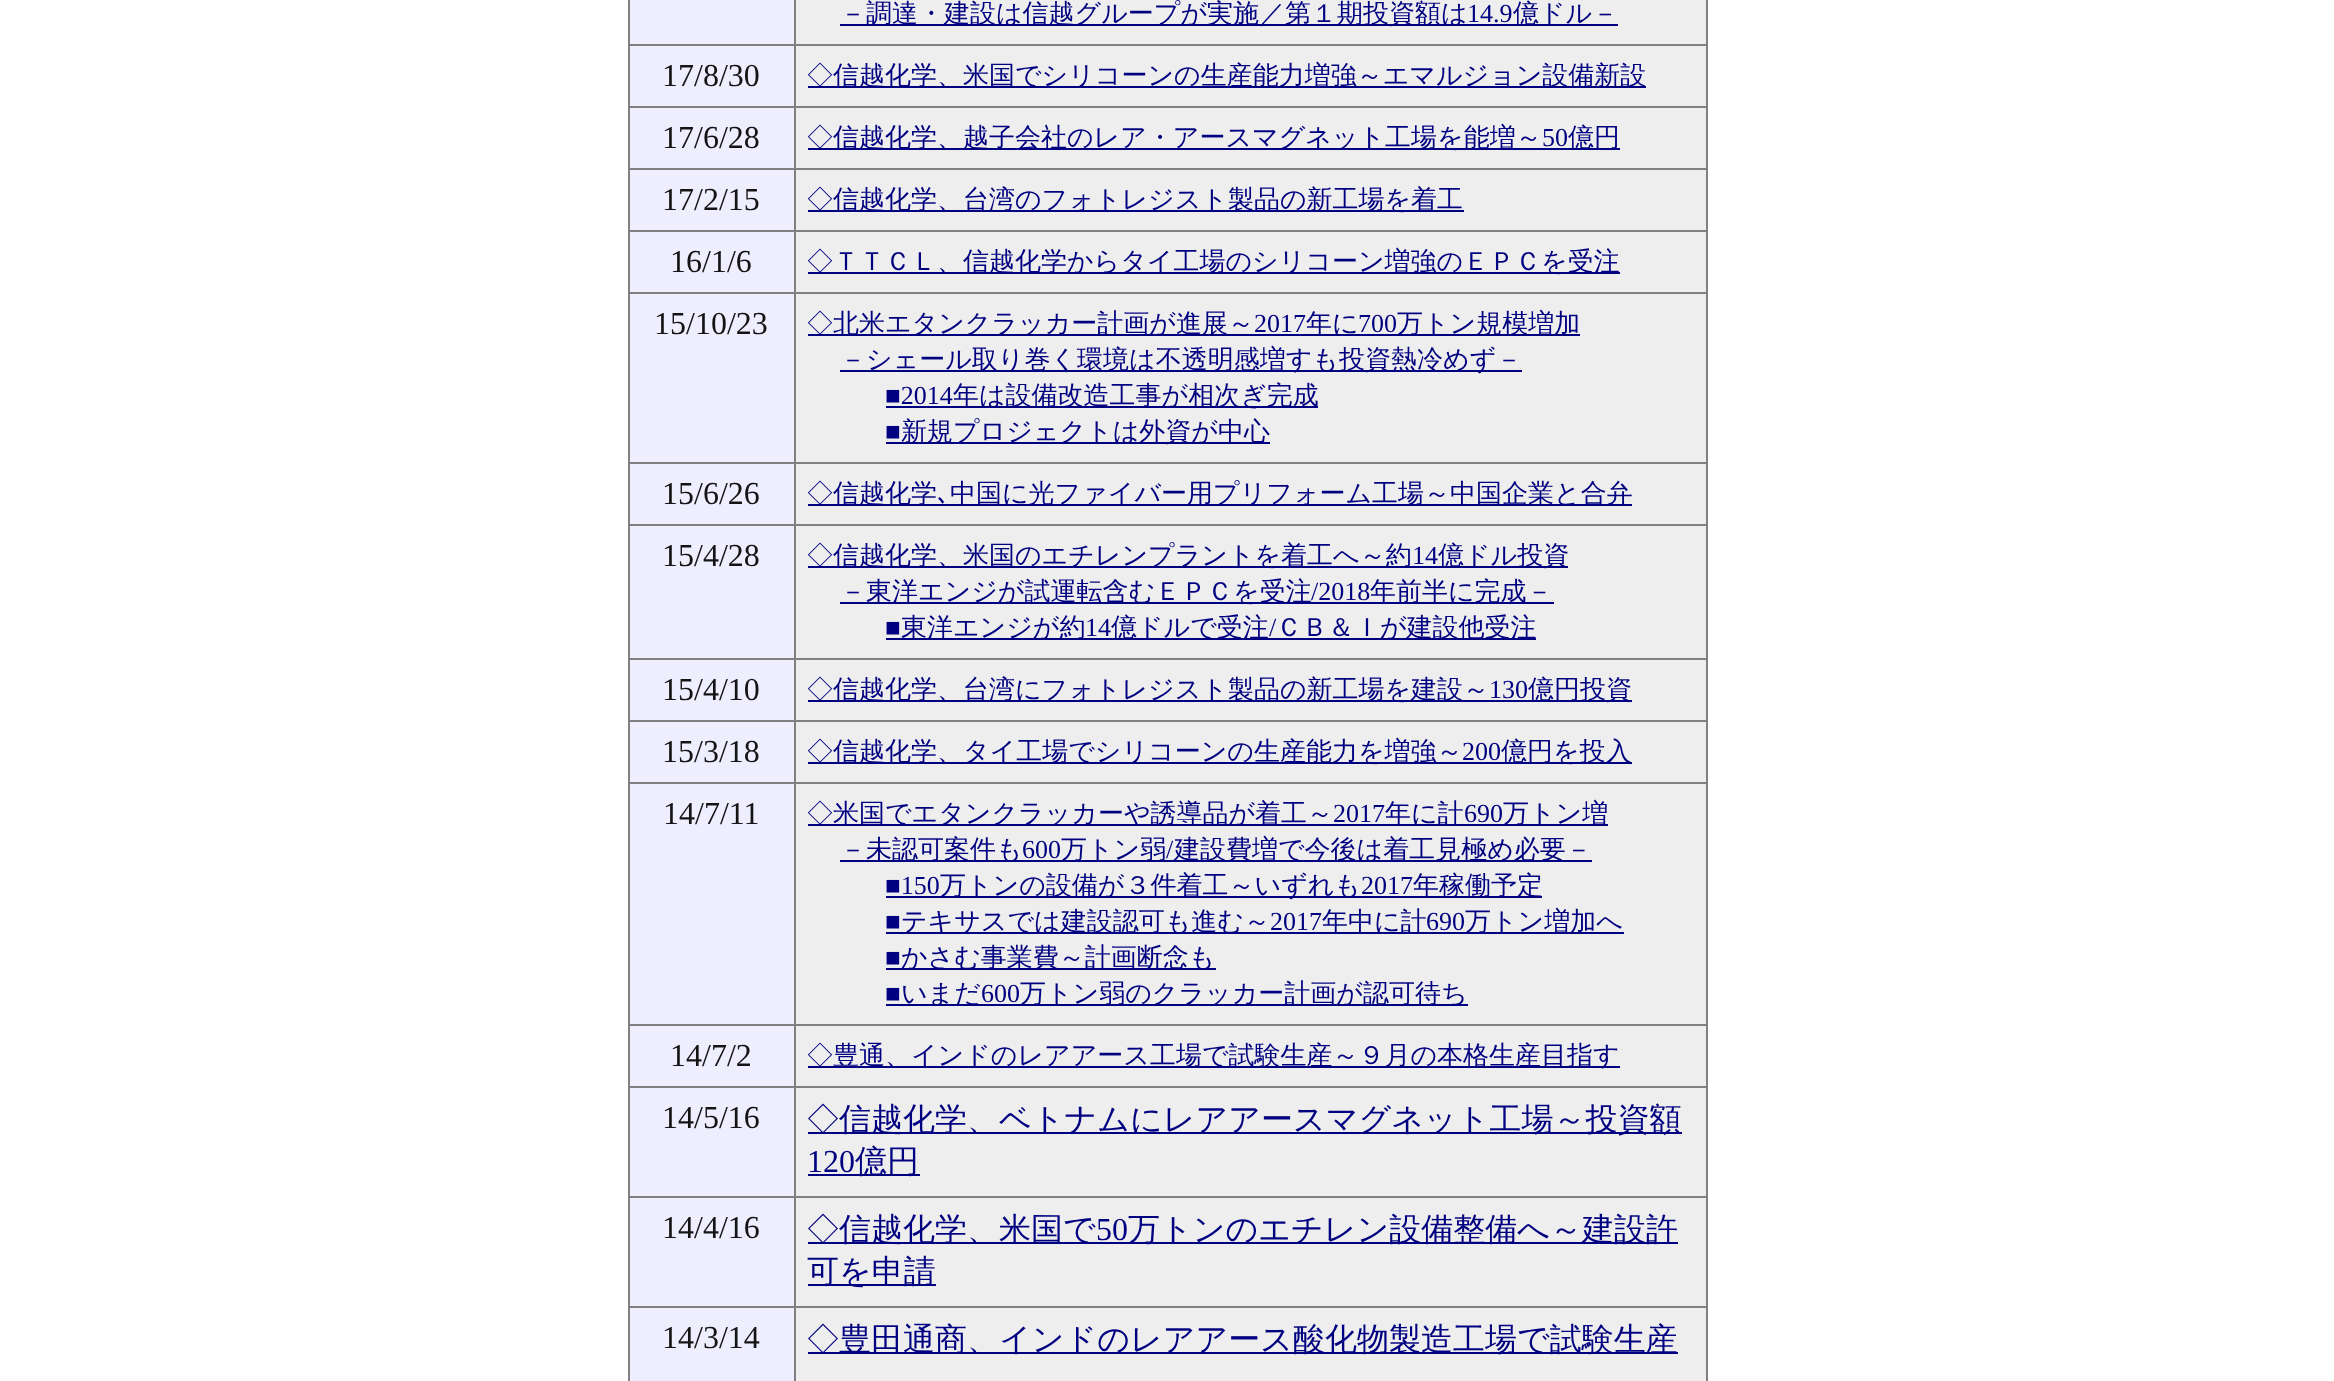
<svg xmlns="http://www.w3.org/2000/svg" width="2334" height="1381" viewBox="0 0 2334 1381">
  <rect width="100%" height="100%" fill="rgb(255,255,255)"/>
  <rect x="628" y="0" width="1080" height="1381" fill="rgb(128,128,128)"/>
  <rect x="630" y="0" width="164" height="44" fill="rgb(238,238,255)"/>
  <rect x="796" y="0" width="910" height="44" fill="rgb(238,238,238)"/>
  <rect x="840" y="24" width="778" height="2" fill="rgb(0,0,128)"/>
  <text x="840" y="22" font-family="WenQuanYi Zen Hei" font-size="26" font-weight="500" fill="rgb(0,0,128)">－調達・建設は信越グループが実施／第１期投資額は</text>
  <text x="1467" y="22" font-family="Liberation Serif" font-size="26" fill="rgb(0,0,128)">14.9</text>
  <text x="1513" y="22" font-family="WenQuanYi Zen Hei" font-size="26" font-weight="500" fill="rgb(0,0,128)">億ドル－</text>
  <rect x="630" y="46" width="164" height="60" fill="rgb(238,238,255)"/>
  <text x="662" y="86" font-family="Liberation Serif" font-size="32" fill="rgb(20,20,20)">17/8/30</text>
  <rect x="796" y="46" width="910" height="60" fill="rgb(238,238,238)"/>
  <rect x="808" y="86" width="838" height="2" fill="rgb(0,0,128)"/>
  <text x="807" y="84" font-family="WenQuanYi Zen Hei" font-size="26" font-weight="500" fill="rgb(0,0,128)">◇信越化学、米国でシリコーンの生産能力増強～エマルジョン設備新設</text>
  <rect x="630" y="108" width="164" height="60" fill="rgb(238,238,255)"/>
  <text x="662" y="148" font-family="Liberation Serif" font-size="32" fill="rgb(20,20,20)">17/6/28</text>
  <rect x="796" y="108" width="910" height="60" fill="rgb(238,238,238)"/>
  <rect x="808" y="148" width="812" height="2" fill="rgb(0,0,128)"/>
  <text x="807" y="146" font-family="WenQuanYi Zen Hei" font-size="26" font-weight="500" fill="rgb(0,0,128)">◇信越化学、越子会社のレア・アースマグネット工場を能増～</text>
  <text x="1542" y="146" font-family="Liberation Serif" font-size="26" fill="rgb(0,0,128)">50</text>
  <text x="1568" y="146" font-family="WenQuanYi Zen Hei" font-size="26" font-weight="500" fill="rgb(0,0,128)">億円</text>
  <rect x="630" y="170" width="164" height="60" fill="rgb(238,238,255)"/>
  <text x="662" y="210" font-family="Liberation Serif" font-size="32" fill="rgb(20,20,20)">17/2/15</text>
  <rect x="796" y="170" width="910" height="60" fill="rgb(238,238,238)"/>
  <rect x="808" y="210" width="656" height="2" fill="rgb(0,0,128)"/>
  <text x="807" y="208" font-family="WenQuanYi Zen Hei" font-size="26" font-weight="500" fill="rgb(0,0,128)">◇信越化学、台湾のフォトレジスト製品の新工場を着工</text>
  <rect x="630" y="232" width="164" height="60" fill="rgb(238,238,255)"/>
  <text x="670" y="272" font-family="Liberation Serif" font-size="32" fill="rgb(20,20,20)">16/1/6</text>
  <rect x="796" y="232" width="910" height="60" fill="rgb(238,238,238)"/>
  <rect x="808" y="272" width="812" height="2" fill="rgb(0,0,128)"/>
  <text x="807" y="270" font-family="WenQuanYi Zen Hei" font-size="26" font-weight="500" fill="rgb(0,0,128)">◇ＴＴＣＬ、信越化学からタイ工場のシリコーン増強のＥＰＣを受注</text>
  <rect x="630" y="294" width="164" height="168" fill="rgb(238,238,255)"/>
  <text x="654" y="334" font-family="Liberation Serif" font-size="32" fill="rgb(20,20,20)">15/10/23</text>
  <rect x="796" y="294" width="910" height="168" fill="rgb(238,238,238)"/>
  <rect x="808" y="334" width="772" height="2" fill="rgb(0,0,128)"/>
  <text x="807" y="332" font-family="WenQuanYi Zen Hei" font-size="26" font-weight="500" fill="rgb(0,0,128)">◇北米エタンクラッカー計画が進展～</text>
  <text x="1254" y="332" font-family="Liberation Serif" font-size="26" fill="rgb(0,0,128)">2017</text>
  <text x="1306" y="332" font-family="WenQuanYi Zen Hei" font-size="26" font-weight="500" fill="rgb(0,0,128)">年に</text>
  <text x="1358" y="332" font-family="Liberation Serif" font-size="26" fill="rgb(0,0,128)">700</text>
  <text x="1397" y="332" font-family="WenQuanYi Zen Hei" font-size="26" font-weight="500" fill="rgb(0,0,128)">万トン規模増加</text>
  <rect x="840" y="370" width="682" height="2" fill="rgb(0,0,128)"/>
  <text x="840" y="368" font-family="WenQuanYi Zen Hei" font-size="26" font-weight="500" fill="rgb(0,0,128)">－シェール取り巻く環境は不透明感増すも投資熱冷めず－</text>
  <text x="885" y="404" font-family="Liberation Serif" font-size="26" fill="rgb(0,0,128)">■2014</text>
  <rect x="886" y="406" width="432" height="2" fill="rgb(0,0,128)"/>
  <text x="953" y="404" font-family="WenQuanYi Zen Hei" font-size="26" font-weight="500" fill="rgb(0,0,128)">年は設備改造工事が相次ぎ完成</text>
  <text x="885" y="440" font-family="Liberation Serif" font-size="26" fill="rgb(0,0,128)">■</text>
  <rect x="886" y="442" width="384" height="2" fill="rgb(0,0,128)"/>
  <text x="901" y="440" font-family="WenQuanYi Zen Hei" font-size="26" font-weight="500" fill="rgb(0,0,128)">新規プロジェクトは外資が中心</text>
  <rect x="630" y="464" width="164" height="60" fill="rgb(238,238,255)"/>
  <text x="662" y="504" font-family="Liberation Serif" font-size="32" fill="rgb(20,20,20)">15/6/26</text>
  <rect x="796" y="464" width="910" height="60" fill="rgb(238,238,238)"/>
  <rect x="808" y="504" width="824" height="2" fill="rgb(0,0,128)"/>
  <text x="807" y="502" font-family="WenQuanYi Zen Hei" font-size="26" font-weight="500" fill="rgb(0,0,128)">◇信越化学</text>
  <text x="937" y="502" font-family="IPAGothic" font-size="26" fill="rgb(0,0,128)">､</text>
  <text x="950" y="502" font-family="WenQuanYi Zen Hei" font-size="26" font-weight="500" fill="rgb(0,0,128)">中国に光ファイバー用プリフォーム工場～中国企業と合弁</text>
  <rect x="630" y="526" width="164" height="132" fill="rgb(238,238,255)"/>
  <text x="662" y="566" font-family="Liberation Serif" font-size="32" fill="rgb(20,20,20)">15/4/28</text>
  <rect x="796" y="526" width="910" height="132" fill="rgb(238,238,238)"/>
  <rect x="808" y="566" width="760" height="2" fill="rgb(0,0,128)"/>
  <text x="807" y="564" font-family="WenQuanYi Zen Hei" font-size="26" font-weight="500" fill="rgb(0,0,128)">◇信越化学、米国のエチレンプラントを着工へ～約</text>
  <text x="1412" y="564" font-family="Liberation Serif" font-size="26" fill="rgb(0,0,128)">14</text>
  <text x="1438" y="564" font-family="WenQuanYi Zen Hei" font-size="26" font-weight="500" fill="rgb(0,0,128)">億ドル投資</text>
  <rect x="840" y="602" width="714" height="2" fill="rgb(0,0,128)"/>
  <text x="840" y="600" font-family="WenQuanYi Zen Hei" font-size="26" font-weight="500" fill="rgb(0,0,128)">－東洋エンジが試運転含むＥＰＣを受注</text>
  <text x="1311" y="600" font-family="Liberation Serif" font-size="26" fill="rgb(0,0,128)">/2018</text>
  <text x="1370" y="600" font-family="WenQuanYi Zen Hei" font-size="26" font-weight="500" fill="rgb(0,0,128)">年前半に完成－</text>
  <text x="885" y="636" font-family="Liberation Serif" font-size="26" fill="rgb(0,0,128)">■</text>
  <rect x="886" y="638" width="650" height="2" fill="rgb(0,0,128)"/>
  <text x="901" y="636" font-family="WenQuanYi Zen Hei" font-size="26" font-weight="500" fill="rgb(0,0,128)">東洋エンジが約</text>
  <text x="1085" y="636" font-family="Liberation Serif" font-size="26" fill="rgb(0,0,128)">14</text>
  <text x="1111" y="636" font-family="WenQuanYi Zen Hei" font-size="26" font-weight="500" fill="rgb(0,0,128)">億ドルで受注</text>
  <text x="1269" y="636" font-family="Liberation Serif" font-size="26" fill="rgb(0,0,128)">/</text>
  <text x="1276" y="636" font-family="WenQuanYi Zen Hei" font-size="26" font-weight="500" fill="rgb(0,0,128)">ＣＢ＆Ｉが建設他受注</text>
  <rect x="630" y="660" width="164" height="60" fill="rgb(238,238,255)"/>
  <text x="662" y="700" font-family="Liberation Serif" font-size="32" fill="rgb(20,20,20)">15/4/10</text>
  <rect x="796" y="660" width="910" height="60" fill="rgb(238,238,238)"/>
  <rect x="808" y="700" width="824" height="2" fill="rgb(0,0,128)"/>
  <text x="807" y="698" font-family="WenQuanYi Zen Hei" font-size="26" font-weight="500" fill="rgb(0,0,128)">◇信越化学、台湾にフォトレジスト製品の新工場を建設～</text>
  <text x="1489" y="698" font-family="Liberation Serif" font-size="26" fill="rgb(0,0,128)">130</text>
  <text x="1528" y="698" font-family="WenQuanYi Zen Hei" font-size="26" font-weight="500" fill="rgb(0,0,128)">億円投資</text>
  <rect x="630" y="722" width="164" height="60" fill="rgb(238,238,255)"/>
  <text x="662" y="762" font-family="Liberation Serif" font-size="32" fill="rgb(20,20,20)">15/3/18</text>
  <rect x="796" y="722" width="910" height="60" fill="rgb(238,238,238)"/>
  <rect x="808" y="762" width="824" height="2" fill="rgb(0,0,128)"/>
  <text x="807" y="760" font-family="WenQuanYi Zen Hei" font-size="26" font-weight="500" fill="rgb(0,0,128)">◇信越化学、タイ工場でシリコーンの生産能力を増強～</text>
  <text x="1462" y="760" font-family="Liberation Serif" font-size="26" fill="rgb(0,0,128)">200</text>
  <text x="1501" y="760" font-family="WenQuanYi Zen Hei" font-size="26" font-weight="500" fill="rgb(0,0,128)">億円を投入</text>
  <rect x="630" y="784" width="164" height="240" fill="rgb(238,238,255)"/>
  <text x="663" y="824" font-family="Liberation Serif" font-size="32" fill="rgb(20,20,20)">14/7/11</text>
  <rect x="796" y="784" width="910" height="240" fill="rgb(238,238,238)"/>
  <rect x="808" y="824" width="800" height="2" fill="rgb(0,0,128)"/>
  <text x="807" y="822" font-family="WenQuanYi Zen Hei" font-size="26" font-weight="500" fill="rgb(0,0,128)">◇米国でエタンクラッカーや誘導品が着工～</text>
  <text x="1333" y="822" font-family="Liberation Serif" font-size="26" fill="rgb(0,0,128)">2017</text>
  <text x="1385" y="822" font-family="WenQuanYi Zen Hei" font-size="26" font-weight="500" fill="rgb(0,0,128)">年に計</text>
  <text x="1464" y="822" font-family="Liberation Serif" font-size="26" fill="rgb(0,0,128)">690</text>
  <text x="1503" y="822" font-family="WenQuanYi Zen Hei" font-size="26" font-weight="500" fill="rgb(0,0,128)">万トン増</text>
  <rect x="840" y="860" width="752" height="2" fill="rgb(0,0,128)"/>
  <text x="840" y="858" font-family="WenQuanYi Zen Hei" font-size="26" font-weight="500" fill="rgb(0,0,128)">－未認可案件も</text>
  <text x="1022" y="858" font-family="Liberation Serif" font-size="26" fill="rgb(0,0,128)">600</text>
  <text x="1061" y="858" font-family="WenQuanYi Zen Hei" font-size="26" font-weight="500" fill="rgb(0,0,128)">万トン弱</text>
  <text x="1166" y="858" font-family="Liberation Serif" font-size="26" fill="rgb(0,0,128)">/</text>
  <text x="1174" y="858" font-family="WenQuanYi Zen Hei" font-size="26" font-weight="500" fill="rgb(0,0,128)">建設費増で今後は着工見極め必要－</text>
  <text x="885" y="894" font-family="Liberation Serif" font-size="26" fill="rgb(0,0,128)">■150</text>
  <rect x="886" y="896" width="656" height="2" fill="rgb(0,0,128)"/>
  <text x="940" y="894" font-family="WenQuanYi Zen Hei" font-size="26" font-weight="500" fill="rgb(0,0,128)">万トンの設備が３件着工～いずれも</text>
  <text x="1361" y="894" font-family="Liberation Serif" font-size="26" fill="rgb(0,0,128)">2017</text>
  <text x="1413" y="894" font-family="WenQuanYi Zen Hei" font-size="26" font-weight="500" fill="rgb(0,0,128)">年稼働予定</text>
  <text x="885" y="930" font-family="Liberation Serif" font-size="26" fill="rgb(0,0,128)">■</text>
  <rect x="886" y="932" width="738" height="2" fill="rgb(0,0,128)"/>
  <text x="901" y="930" font-family="WenQuanYi Zen Hei" font-size="26" font-weight="500" fill="rgb(0,0,128)">テキサスでは建設認可も進む～</text>
  <text x="1270" y="930" font-family="Liberation Serif" font-size="26" fill="rgb(0,0,128)">2017</text>
  <text x="1322" y="930" font-family="WenQuanYi Zen Hei" font-size="26" font-weight="500" fill="rgb(0,0,128)">年中に計</text>
  <text x="1426" y="930" font-family="Liberation Serif" font-size="26" fill="rgb(0,0,128)">690</text>
  <text x="1465" y="930" font-family="WenQuanYi Zen Hei" font-size="26" font-weight="500" fill="rgb(0,0,128)">万トン増加へ</text>
  <text x="885" y="966" font-family="Liberation Serif" font-size="26" fill="rgb(0,0,128)">■</text>
  <rect x="886" y="968" width="330" height="2" fill="rgb(0,0,128)"/>
  <text x="901" y="966" font-family="WenQuanYi Zen Hei" font-size="26" font-weight="500" fill="rgb(0,0,128)">かさむ事業費～計画断念も</text>
  <text x="885" y="1002" font-family="Liberation Serif" font-size="26" fill="rgb(0,0,128)">■</text>
  <rect x="886" y="1004" width="582" height="2" fill="rgb(0,0,128)"/>
  <text x="901" y="1002" font-family="WenQuanYi Zen Hei" font-size="26" font-weight="500" fill="rgb(0,0,128)">いまだ</text>
  <text x="981" y="1002" font-family="Liberation Serif" font-size="26" fill="rgb(0,0,128)">600</text>
  <text x="1020" y="1002" font-family="WenQuanYi Zen Hei" font-size="26" font-weight="500" fill="rgb(0,0,128)">万トン弱のクラッカー計画が認可待ち</text>
  <rect x="630" y="1026" width="164" height="60" fill="rgb(238,238,255)"/>
  <text x="670" y="1066" font-family="Liberation Serif" font-size="32" fill="rgb(20,20,20)">14/7/2</text>
  <rect x="796" y="1026" width="910" height="60" fill="rgb(238,238,238)"/>
  <rect x="808" y="1066" width="812" height="2" fill="rgb(0,0,128)"/>
  <text x="807" y="1064" font-family="WenQuanYi Zen Hei" font-size="26" font-weight="500" fill="rgb(0,0,128)">◇豊通、インドのレアアース工場で試験生産～９月の本格生産目指す</text>
  <rect x="630" y="1088" width="164" height="108" fill="rgb(238,238,255)"/>
  <text x="662" y="1128" font-family="Liberation Serif" font-size="32" fill="rgb(20,20,20)">14/5/16</text>
  <rect x="796" y="1088" width="910" height="108" fill="rgb(238,238,238)"/>
  <rect x="808" y="1132" width="874" height="2" fill="rgb(0,0,128)"/>
  <text x="807" y="1130" font-family="WenQuanYi Zen Hei" font-size="32" font-weight="500" fill="rgb(0,0,128)">◇信越化学、ベトナムにレアアースマグネット工場～投資額</text>
  <text x="807" y="1172" font-family="Liberation Serif" font-size="32" fill="rgb(0,0,128)">120</text>
  <rect x="808" y="1174" width="112" height="2" fill="rgb(0,0,128)"/>
  <text x="855" y="1172" font-family="WenQuanYi Zen Hei" font-size="32" font-weight="500" fill="rgb(0,0,128)">億円</text>
  <rect x="630" y="1198" width="164" height="108" fill="rgb(238,238,255)"/>
  <text x="662" y="1238" font-family="Liberation Serif" font-size="32" fill="rgb(20,20,20)">14/4/16</text>
  <rect x="796" y="1198" width="910" height="108" fill="rgb(238,238,238)"/>
  <rect x="808" y="1242" width="870" height="2" fill="rgb(0,0,128)"/>
  <text x="807" y="1240" font-family="WenQuanYi Zen Hei" font-size="32" font-weight="500" fill="rgb(0,0,128)">◇信越化学、米国で</text>
  <text x="1096" y="1240" font-family="Liberation Serif" font-size="32" fill="rgb(0,0,128)">50</text>
  <text x="1128" y="1240" font-family="WenQuanYi Zen Hei" font-size="32" font-weight="500" fill="rgb(0,0,128)">万トンのエチレン設備整備へ～建設許</text>
  <rect x="808" y="1284" width="128" height="2" fill="rgb(0,0,128)"/>
  <text x="807" y="1282" font-family="WenQuanYi Zen Hei" font-size="32" font-weight="500" fill="rgb(0,0,128)">可を申請</text>
  <rect x="630" y="1308" width="164" height="73" fill="rgb(238,238,255)"/>
  <text x="662" y="1348" font-family="Liberation Serif" font-size="32" fill="rgb(20,20,20)">14/3/14</text>
  <rect x="796" y="1308" width="910" height="73" fill="rgb(238,238,238)"/>
  <rect x="808" y="1352" width="870" height="2" fill="rgb(0,0,128)"/>
  <text x="807" y="1350" font-family="WenQuanYi Zen Hei" font-size="32" font-weight="500" fill="rgb(0,0,128)">◇豊田通商、インドのレアアース酸化物製造工場で試験生産</text>
</svg>
